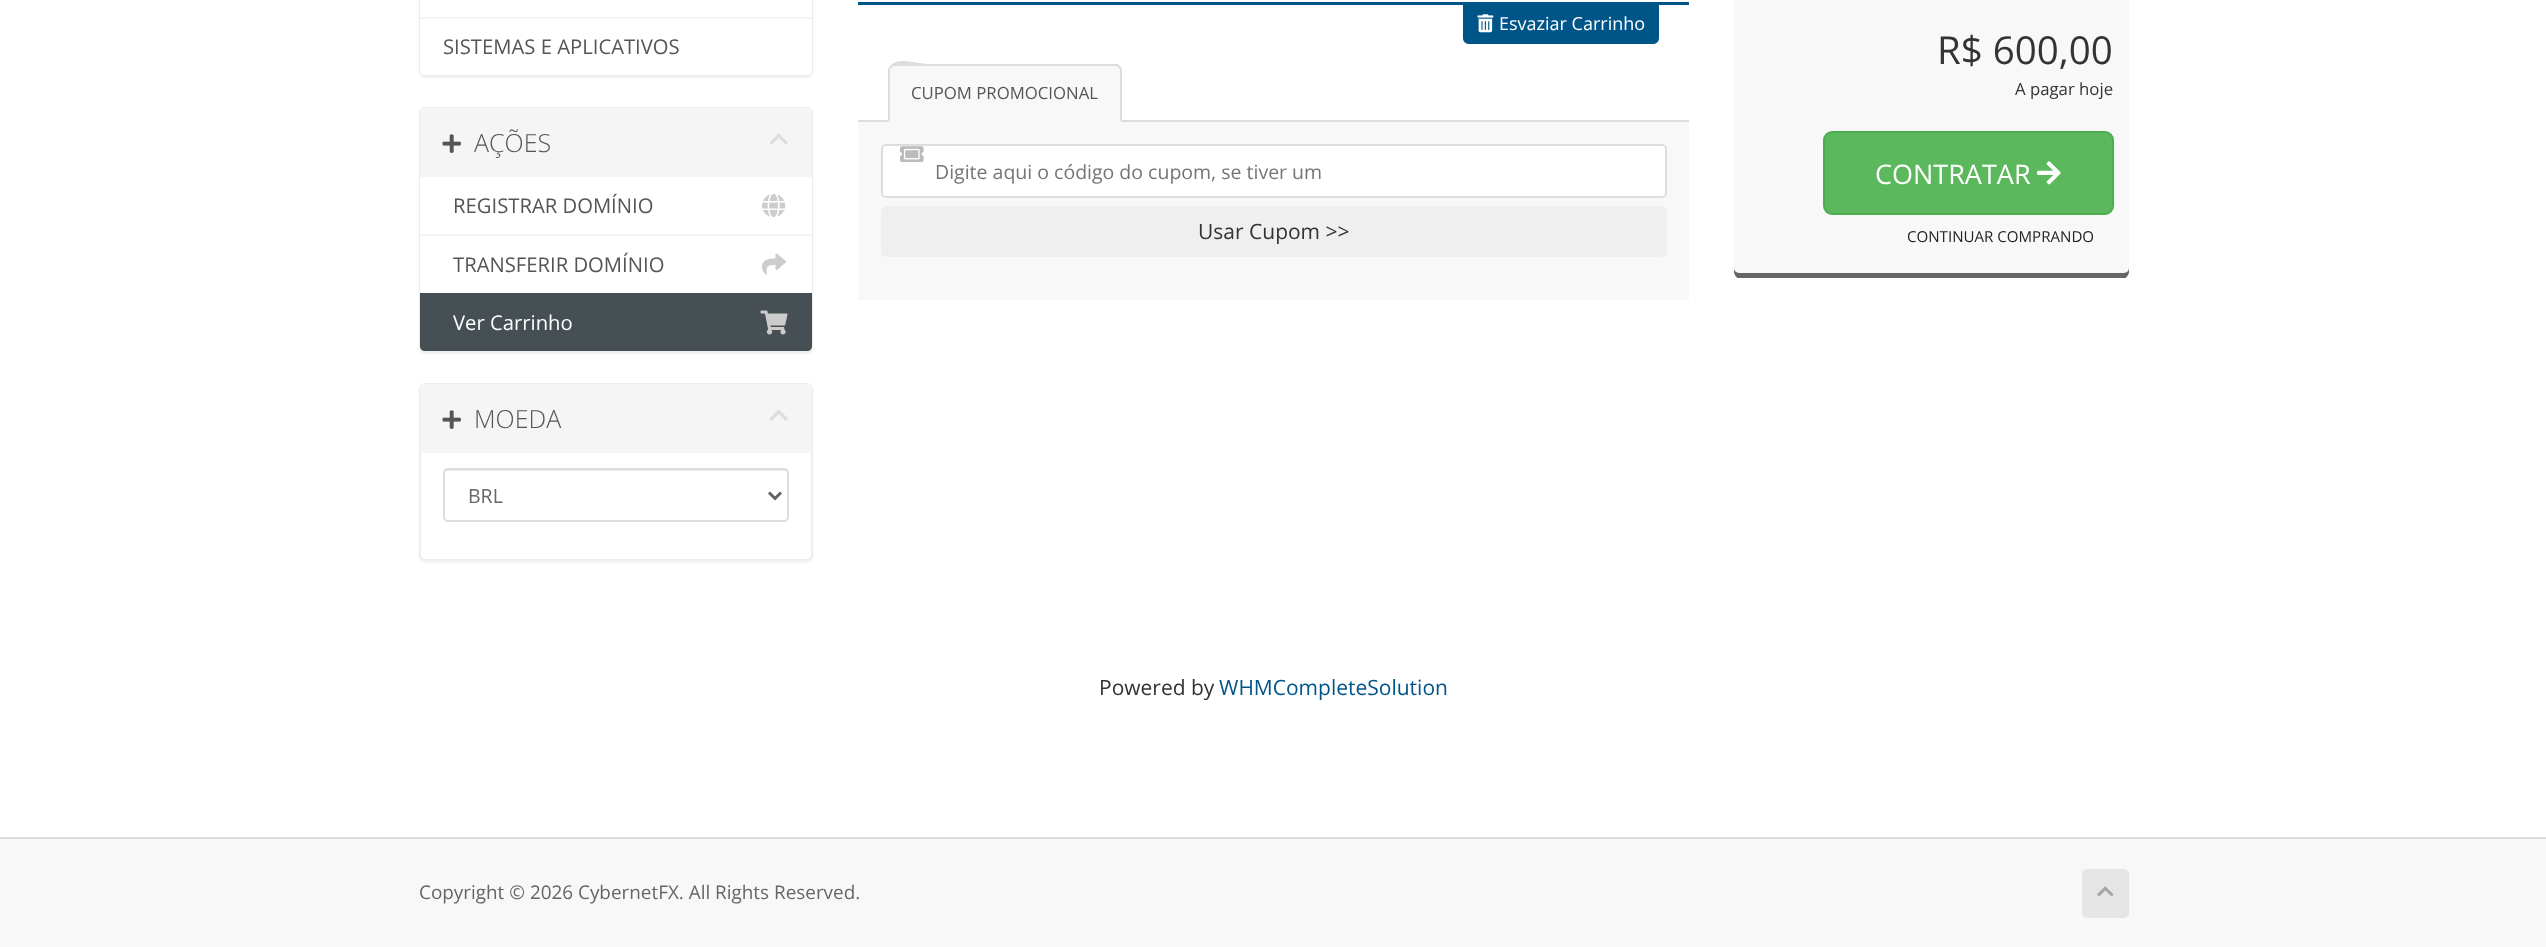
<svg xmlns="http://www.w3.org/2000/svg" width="2546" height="947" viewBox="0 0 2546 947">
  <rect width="100%" height="100%" fill="rgb(248,248,248)"/>
  <rect x="0" y="0" width="2546" height="837" fill="rgb(255,255,255)"/>
  <rect x="419" y="-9" width="394" height="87" rx="6" fill="rgba(0,0,0,0.05)" filter="blur(1px)"/>
  <rect x="420" y="-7" width="392" height="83" rx="5" fill="none" stroke="rgb(238,238,238)" stroke-width="2"/>
  <rect x="420" y="0" width="392" height="17" fill="rgb(255,255,255)"/>
  <path d="M420 17H812V70C812 73 810 75 807 75H425C422 75 420 73 420 70Z" fill="rgb(255,255,255)"/>
  <rect x="420" y="17" width="392" height="2" fill="rgb(245,245,245)"/>
  <text x="443" y="54" font-family="Open Sans" font-size="20.25" fill="rgb(85,85,85)">SISTEMAS E APLICATIVOS</text>
  <rect x="419" y="108" width="394" height="246" rx="6" fill="rgba(0,0,0,0.05)" filter="blur(1px)"/>
  <rect x="420" y="108" width="392" height="244" rx="5" fill="none" stroke="rgb(238,238,238)" stroke-width="2"/>
  <path d="M425 108H807C810 108 812 110 812 113V177H420V113C420 110 422 108 425 108Z" fill="rgb(245,245,245)"/>
  <image x="442" y="134" width="19" height="19" href="pic1.png"/>
  <text x="474" y="152" font-family="Open Sans" font-size="25" font-weight="300" fill="rgb(85,85,85)">AÇÕES</text>
  <image x="769" y="133" width="19" height="12" href="pic2.png"/>
  <rect x="420" y="177" width="392" height="57" fill="rgb(255,255,255)"/>
  <rect x="420" y="234" width="392" height="2" fill="rgb(245,245,245)"/>
  <text x="453" y="213" font-family="Open Sans" font-size="20.25" fill="rgb(85,85,85)">REGISTRAR DOMÍNIO</text>
  <image x="762" y="194" width="24" height="23" href="pic3.png"/>
  <rect x="420" y="236" width="392" height="57" fill="rgb(255,255,255)"/>
  <text x="453" y="272" font-family="Open Sans" font-size="20.25" fill="rgb(85,85,85)">TRANSFERIR DOMÍNIO</text>
  <image x="762" y="253" width="24" height="22" href="pic4.png"/>
  <path d="M420 293H812V346C812 349 810 351 807 351H425C422 351 420 349 420 346Z" fill="rgb(70,80,84)"/>
  <text x="453" y="330" font-family="Open Sans" font-size="20.25" fill="rgb(255,255,255)">Ver Carrinho</text>
  <image x="760" y="310" width="28" height="25" href="pic5.png"/>
  <rect x="419" y="384" width="394" height="179" rx="6" fill="rgba(0,0,0,0.05)" filter="blur(1px)"/>
  <rect x="420" y="384" width="392" height="176" rx="5" fill="rgb(255,255,255)" stroke="rgb(238,238,238)" stroke-width="2"/>
  <path d="M425 384H807C810 384 812 386 812 389V453H420V389C420 386 422 384 425 384Z" fill="rgb(245,245,245)"/>
  <image x="442" y="410" width="19" height="19" href="pic1.png"/>
  <text x="474" y="428" font-family="Open Sans" font-size="25" font-weight="300" fill="rgb(85,85,85)">MOEDA</text>
  <image x="769" y="409" width="19" height="12" href="pic2.png"/>
  <path d="M447 471H784C786 471 788 472 788 474C788 472 787 470 785 470H447C445 470 444 472 444 474C444 472 445 471 447 471Z" fill="rgb(236,236,236)"/>
  <rect x="444" y="469" width="344" height="52" rx="4" fill="none" stroke="rgb(221,221,221)" stroke-width="2"/>
  <path d="M769 492.5L775 498.5L781 492.5" fill="none" stroke="rgb(98,98,98)" stroke-width="3"/>
  <text x="468" y="503" font-family="Open Sans" font-size="19.5" fill="rgb(102,102,102)">BRL</text>
  <rect x="858" y="2" width="831" height="3" fill="rgb(0,85,136)"/>
  <path d="M1463 5H1659V38C1659 41.5 1656.5 44 1653 44H1469C1465.5 44 1463 41.5 1463 38Z" fill="rgb(0,85,136)"/>
  <image x="1477" y="14" width="17" height="19" href="pic6.png"/>
  <text x="1499" y="30" font-family="Open Sans" font-size="18" fill="rgb(255,255,255)">Esvaziar Carrinho</text>
  <rect x="858" y="120" width="831" height="2" fill="rgb(221,221,221)"/>
  <path d="M894 65H1116C1119.5 65 1122 67.5 1122 71V122H888V71C888 67.5 890.5 65 894 65Z" fill="rgb(248,248,248)"/>
  <path d="M894 66C893 66 892 67 891 68L890 66C899 56 916 64 930 64H1118L1120 66L1119 68C1118 67 1117 66 1116 66Z" fill="rgb(221,221,221)"/>
  <path d="M1122 122V70C1122 69 1121 67 1120 66L1119 68L1120 70V120Z" fill="rgb(221,221,221)"/>
  <path d="M888 122L890 120V70L891 68L890 66C889 67 888 69 888 70Z" fill="rgb(221,221,221)"/>
  <text x="911" y="99" font-family="Open Sans" font-size="16.75" fill="rgb(85,85,85)">CUPOM PROMOCIONAL</text>
  <rect x="858" y="122" width="831" height="178" fill="rgb(248,248,248)"/>
  <rect x="882" y="145" width="784" height="52" rx="4" fill="rgb(255,255,255)" stroke="rgb(221,221,221)" stroke-width="2"/>
  <image x="900" y="146" width="24" height="16" href="pic7.png"/>
  <text x="935" y="179" font-family="Open Sans" font-size="19.5" fill="rgb(117,117,117)">Digite aqui o código do cupom, se tiver um</text>
  <rect x="881" y="206" width="786" height="51" rx="6" fill="rgb(239,239,239)"/>
  <text x="1198" y="239" font-family="Open Sans" font-size="21" fill="rgb(51,51,51)">Usar Cupom &gt;&gt;</text>
  <rect x="1734" y="-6" width="395" height="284" rx="6" fill="rgb(102,102,102)"/>
  <rect x="1737" y="277" width="389" height="1" fill="rgb(102,102,102)"/>
  <rect x="1734" y="-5" width="395" height="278" rx="5" fill="rgb(248,248,248)"/>
  <text x="1937" y="64" font-family="Open Sans" font-size="38.5" fill="rgb(51,51,51)">R$ 600,00</text>
  <text x="2015" y="95" font-family="Open Sans" font-size="16.75" fill="rgb(51,51,51)">A pagar hoje</text>
  <rect x="1824" y="132" width="289" height="82" rx="8" fill="rgb(92,184,92)" stroke="rgb(76,174,76)" stroke-width="2"/>
  <text x="1875" y="184" font-family="Open Sans" font-size="27" fill="rgb(255,255,255)">CONTRATAR</text>
  <image x="2037" y="161" width="24" height="24" href="pic8.png"/>
  <text x="1907" y="242" font-family="Open Sans" font-size="15.1" fill="rgb(34,34,34)">CONTINUAR COMPRANDO</text>
  <text x="1099" y="695" font-family="Open Sans" font-size="21" fill="rgb(51,51,51)">Powered by</text>
  <text x="1219" y="695" font-family="Open Sans" font-size="21" fill="rgb(0,85,136)">WHMCompleteSolution</text>
  <rect x="0" y="837" width="2546" height="2" fill="rgb(221,221,221)"/>
  <text x="419" y="899" font-family="Open Sans" font-size="18.9" fill="rgb(102,102,102)">Copyright © 2026 CybernetFX. All Rights Reserved.</text>
  <rect x="2082" y="869" width="47" height="49" rx="5" fill="rgb(229,229,229)"/>
  <image x="2097" y="886" width="17" height="11" href="pic9.png"/>
</svg>
